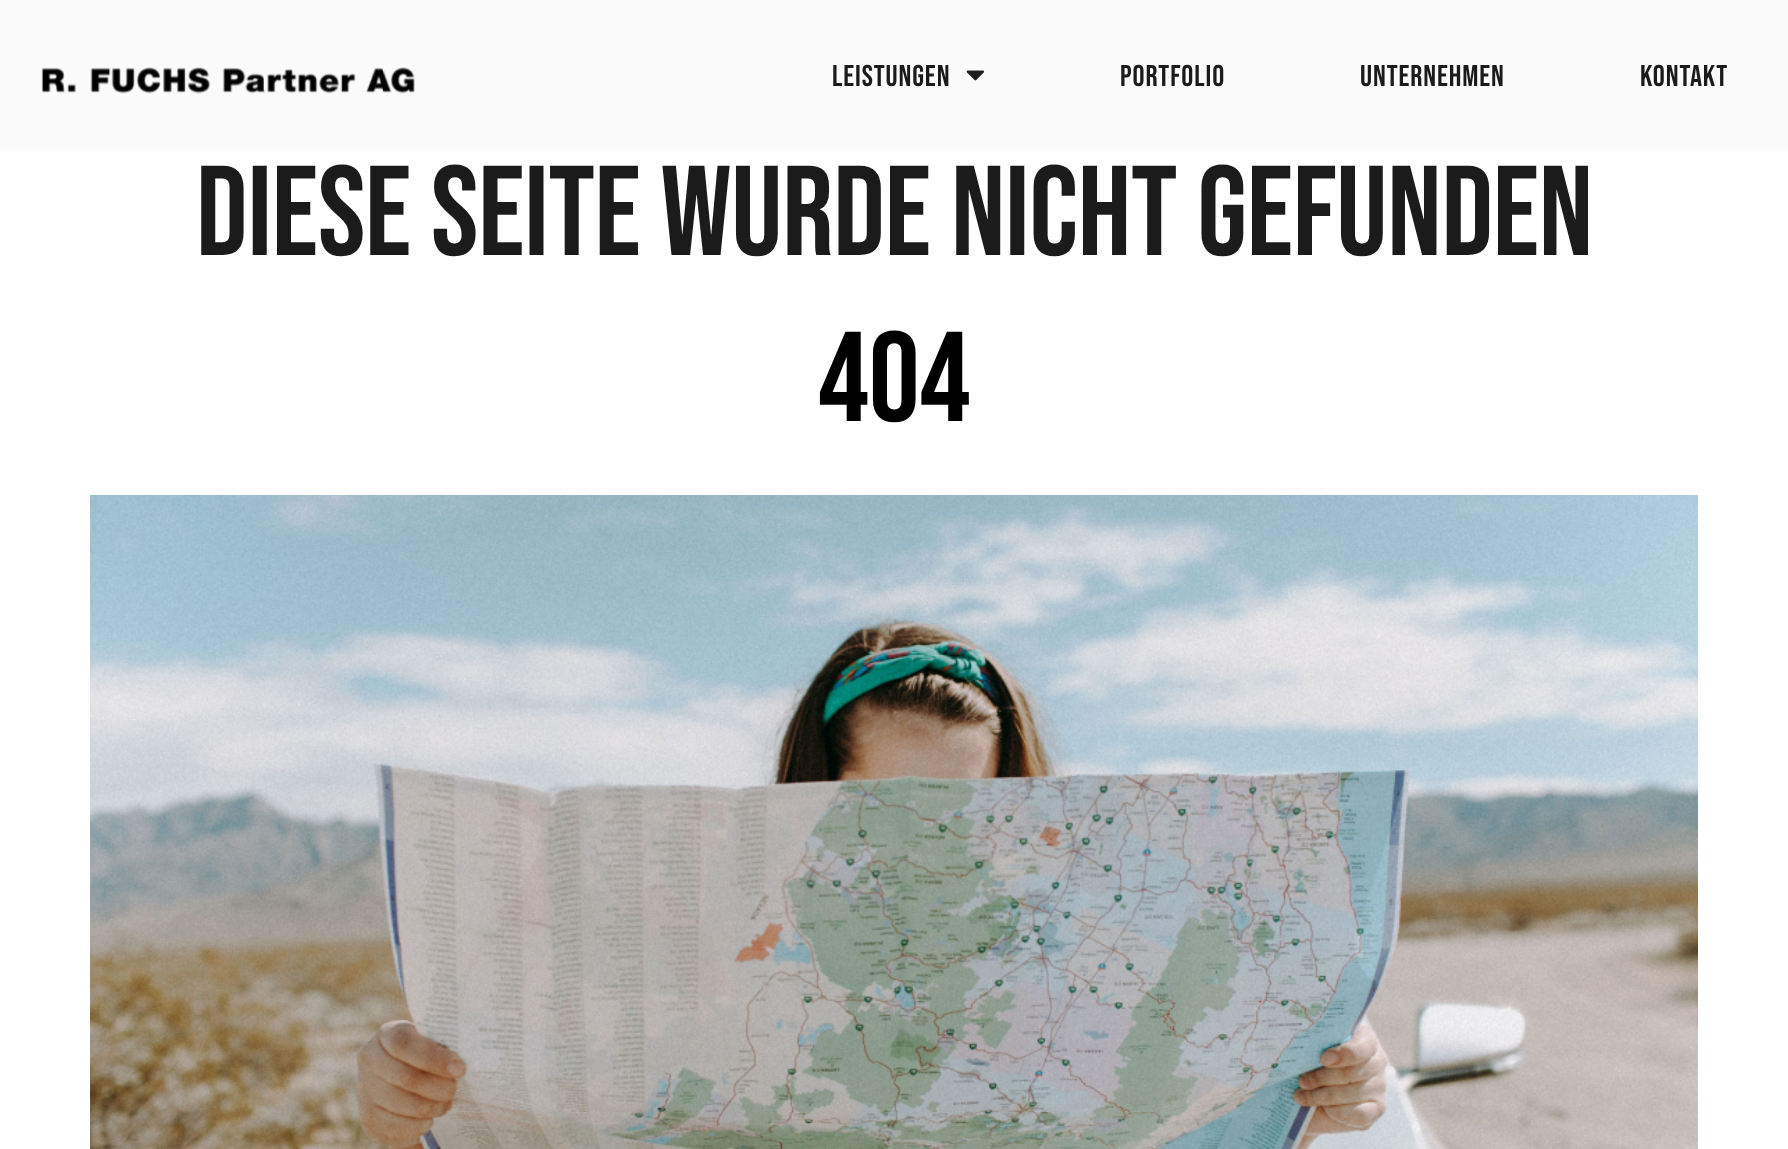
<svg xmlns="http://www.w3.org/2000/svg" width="1788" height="1149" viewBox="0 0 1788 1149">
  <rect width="100%" height="100%" fill="rgb(251,251,251)"/>
  <image x="41" y="67" width="374" height="27" href="pic1.png"/>
  <text x="832" y="86" font-family="Bebas Neue" font-size="30" letter-spacing="0.9" fill="rgb(27,27,27)">LEISTUNGEN</text>
  <image x="966" y="70" width="19" height="11" href="pic2.png"/>
  <g font-family="Bebas Neue" font-size="30" letter-spacing="0.9" fill="rgb(27,27,27)">
    <text x="1120" y="86">PORTFOLIO</text>
    <text x="1360" y="86">UNTERNEHMEN</text>
    <text x="1640" y="86">KONTAKT</text>
  </g>
  <rect x="0" y="150" width="1788" height="999" fill="rgb(255,255,255)"/>
  <text x="196" y="255" font-family="Bebas Neue" font-size="127.5" letter-spacing="-0.3" fill="rgb(27,27,27)">Diese Seite wurde nicht gefunden</text>
  <text x="818" y="421" font-family="Bebas Neue" font-size="127.5" letter-spacing="-0.3" fill="rgb(0,0,0)">404</text>
  <image x="90" y="495" width="1608" height="654" href="pic3.png"/>
</svg>
